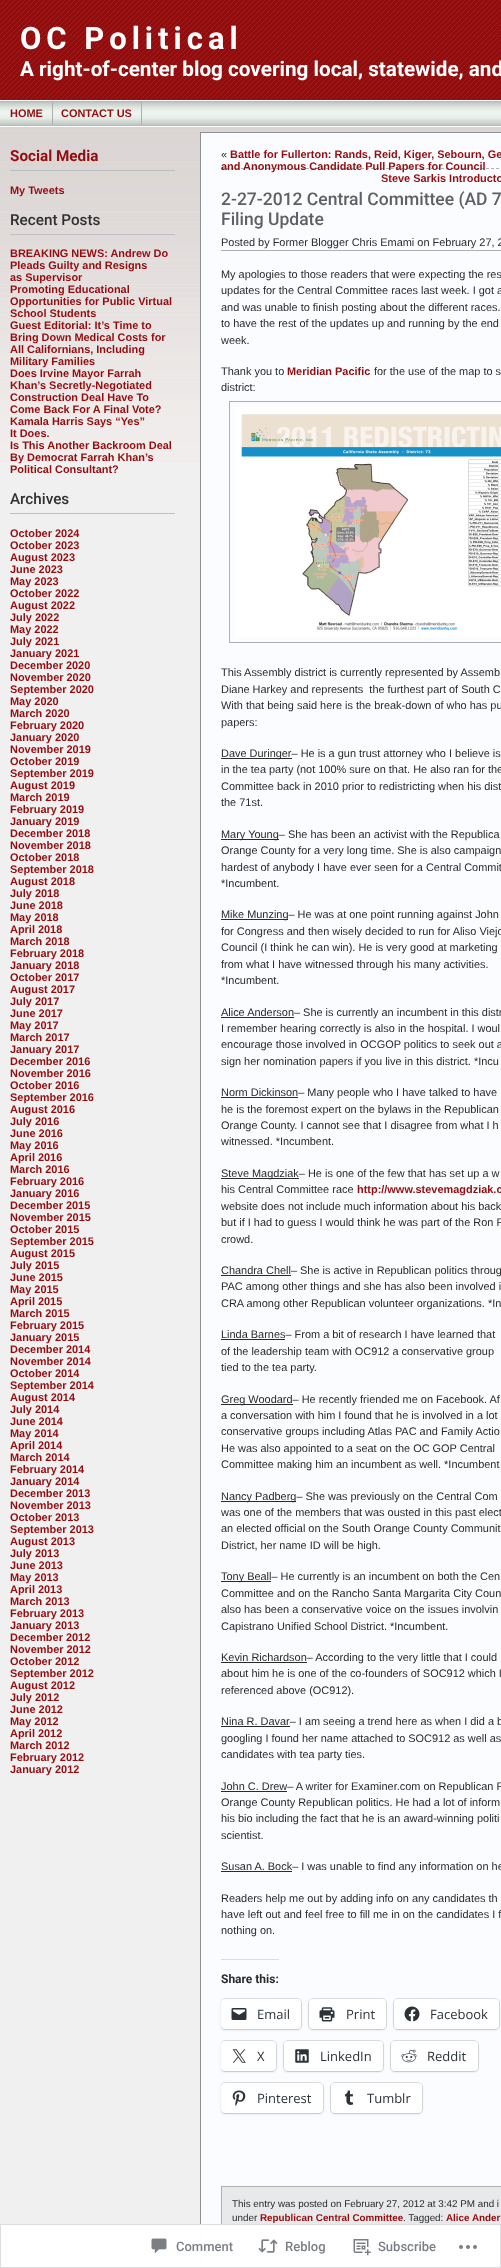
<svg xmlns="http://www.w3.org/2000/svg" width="501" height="2268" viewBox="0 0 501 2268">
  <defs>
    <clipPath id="clip1"><rect x="221" y="266" width="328" height="1920"/></clipPath>
  </defs>
  <rect width="100%" height="100%" fill="rgb(240,240,240)"/>
  <image x="0" y="0" width="501" height="462" href="pic1.png"/>
  <text x="20" y="49" font-family="Roboto" font-size="31" font-weight="bold" letter-spacing="5" fill="rgb(255,255,255)">OC Political</text>
  <text x="20" y="76" font-family="Roboto" font-size="20.7" font-weight="bold" fill="rgb(255,255,255)">A right-of-center blog covering local, statewide, and</text>
  <image x="0" y="101" width="501" height="25" href="pic2.png"/>
  <rect x="0" y="100" width="501" height="1" fill="rgb(255,255,255)"/>
  <rect x="0" y="126" width="501" height="1" fill="rgb(255,255,255)"/>
  <text x="10" y="117" font-family="Arimo" font-size="10.95" font-weight="bold" fill="rgb(148,12,14)">HOME</text>
  <rect x="52" y="101" width="1" height="24" fill="rgb(176,176,176)"/>
  <text x="61" y="117" font-family="Arimo" font-size="10.95" font-weight="bold" fill="rgb(148,12,14)">CONTACT US</text>
  <rect x="141" y="101" width="1" height="24" fill="rgb(176,176,176)"/>
  <rect x="10" y="170" width="165" height="1" fill="rgb(190,191,195)"/>
  <text x="10" y="161" font-family="Roboto" font-size="15.25" font-weight="bold" fill="rgb(148,12,14)">Social Media</text>
  <text x="10" y="194" font-family="Arimo" font-size="10.95" font-weight="bold" fill="rgb(148,12,14)">My Tweets</text>
  <rect x="10" y="234" width="165" height="1" fill="rgb(190,191,195)"/>
  <text x="10" y="225" font-family="Roboto" font-size="15.25" font-weight="500" fill="rgb(48,48,48)">Recent Posts</text>
  <g font-family="Arimo" font-size="10.95" font-weight="bold" fill="rgb(148,12,14)">
    <text>
      <tspan x="10" y="257">BREAKING NEWS: Andrew Do</tspan>
      <tspan x="10" y="269">Pleads Guilty and Resigns</tspan>
      <tspan x="10" y="281">as Supervisor</tspan>
      <tspan x="10" y="293">Promoting Educational</tspan>
      <tspan x="10" y="305">Opportunities for Public Virtual</tspan>
      <tspan x="10" y="317">School Students</tspan>
      <tspan x="10" y="329">Guest Editorial: It’s Time to</tspan>
      <tspan x="10" y="341">Bring Down Medical Costs for</tspan>
      <tspan x="10" y="353">All Californians, Including</tspan>
      <tspan x="10" y="365">Military Families</tspan>
      <tspan x="10" y="377">Does Irvine Mayor Farrah</tspan>
      <tspan x="10" y="389">Khan’s Secretly-Negotiated</tspan>
      <tspan x="10" y="401">Construction Deal Have To</tspan>
      <tspan x="10" y="413">Come Back For A Final Vote?</tspan>
      <tspan x="10" y="425">Kamala Harris Says “Yes”</tspan>
      <tspan x="10" y="437">It Does.</tspan>
      <tspan x="10" y="449">Is This Another Backroom Deal</tspan>
      <tspan x="10" y="461">By Democrat Farrah Khan’s</tspan>
      <tspan x="10" y="473">Political Consultant?</tspan>
    </text>
  </g>
  <rect x="10" y="513" width="165" height="1" fill="rgb(190,191,195)"/>
  <text x="10" y="504" font-family="Roboto" font-size="15.25" font-weight="500" fill="rgb(48,48,48)">Archives</text>
  <g font-family="Arimo" font-size="10.95" font-weight="bold" fill="rgb(148,12,14)">
    <text>
      <tspan x="10" y="537">October 2024</tspan>
      <tspan x="10" y="549">October 2023</tspan>
      <tspan x="10" y="561">August 2023</tspan>
      <tspan x="10" y="573">June 2023</tspan>
      <tspan x="10" y="585">May 2023</tspan>
      <tspan x="10" y="597">October 2022</tspan>
      <tspan x="10" y="609">August 2022</tspan>
      <tspan x="10" y="621">July 2022</tspan>
      <tspan x="10" y="633">May 2022</tspan>
      <tspan x="10" y="645">July 2021</tspan>
      <tspan x="10" y="657">January 2021</tspan>
      <tspan x="10" y="669">December 2020</tspan>
      <tspan x="10" y="681">November 2020</tspan>
      <tspan x="10" y="693">September 2020</tspan>
      <tspan x="10" y="705">May 2020</tspan>
      <tspan x="10" y="717">March 2020</tspan>
      <tspan x="10" y="729">February 2020</tspan>
      <tspan x="10" y="741">January 2020</tspan>
      <tspan x="10" y="753">November 2019</tspan>
      <tspan x="10" y="765">October 2019</tspan>
      <tspan x="10" y="777">September 2019</tspan>
      <tspan x="10" y="789">August 2019</tspan>
      <tspan x="10" y="801">March 2019</tspan>
      <tspan x="10" y="813">February 2019</tspan>
      <tspan x="10" y="825">January 2019</tspan>
      <tspan x="10" y="837">December 2018</tspan>
      <tspan x="10" y="849">November 2018</tspan>
      <tspan x="10" y="861">October 2018</tspan>
      <tspan x="10" y="873">September 2018</tspan>
      <tspan x="10" y="885">August 2018</tspan>
      <tspan x="10" y="897">July 2018</tspan>
      <tspan x="10" y="909">June 2018</tspan>
      <tspan x="10" y="921">May 2018</tspan>
      <tspan x="10" y="933">April 2018</tspan>
      <tspan x="10" y="945">March 2018</tspan>
      <tspan x="10" y="957">February 2018</tspan>
      <tspan x="10" y="969">January 2018</tspan>
      <tspan x="10" y="981">October 2017</tspan>
      <tspan x="10" y="993">August 2017</tspan>
      <tspan x="10" y="1005">July 2017</tspan>
      <tspan x="10" y="1017">June 2017</tspan>
      <tspan x="10" y="1029">May 2017</tspan>
      <tspan x="10" y="1041">March 2017</tspan>
      <tspan x="10" y="1053">January 2017</tspan>
      <tspan x="10" y="1065">December 2016</tspan>
      <tspan x="10" y="1077">November 2016</tspan>
      <tspan x="10" y="1089">October 2016</tspan>
      <tspan x="10" y="1101">September 2016</tspan>
      <tspan x="10" y="1113">August 2016</tspan>
      <tspan x="10" y="1125">July 2016</tspan>
      <tspan x="10" y="1137">June 2016</tspan>
      <tspan x="10" y="1149">May 2016</tspan>
      <tspan x="10" y="1161">April 2016</tspan>
      <tspan x="10" y="1173">March 2016</tspan>
      <tspan x="10" y="1185">February 2016</tspan>
      <tspan x="10" y="1197">January 2016</tspan>
      <tspan x="10" y="1209">December 2015</tspan>
      <tspan x="10" y="1221">November 2015</tspan>
      <tspan x="10" y="1233">October 2015</tspan>
      <tspan x="10" y="1245">September 2015</tspan>
      <tspan x="10" y="1257">August 2015</tspan>
      <tspan x="10" y="1269">July 2015</tspan>
      <tspan x="10" y="1281">June 2015</tspan>
      <tspan x="10" y="1293">May 2015</tspan>
      <tspan x="10" y="1305">April 2015</tspan>
      <tspan x="10" y="1317">March 2015</tspan>
      <tspan x="10" y="1329">February 2015</tspan>
      <tspan x="10" y="1341">January 2015</tspan>
      <tspan x="10" y="1353">December 2014</tspan>
      <tspan x="10" y="1365">November 2014</tspan>
      <tspan x="10" y="1377">October 2014</tspan>
      <tspan x="10" y="1389">September 2014</tspan>
      <tspan x="10" y="1401">August 2014</tspan>
      <tspan x="10" y="1413">July 2014</tspan>
      <tspan x="10" y="1425">June 2014</tspan>
      <tspan x="10" y="1437">May 2014</tspan>
      <tspan x="10" y="1449">April 2014</tspan>
      <tspan x="10" y="1461">March 2014</tspan>
      <tspan x="10" y="1473">February 2014</tspan>
      <tspan x="10" y="1485">January 2014</tspan>
      <tspan x="10" y="1497">December 2013</tspan>
      <tspan x="10" y="1509">November 2013</tspan>
      <tspan x="10" y="1521">October 2013</tspan>
      <tspan x="10" y="1533">September 2013</tspan>
      <tspan x="10" y="1545">August 2013</tspan>
      <tspan x="10" y="1557">July 2013</tspan>
      <tspan x="10" y="1569">June 2013</tspan>
      <tspan x="10" y="1581">May 2013</tspan>
      <tspan x="10" y="1593">April 2013</tspan>
      <tspan x="10" y="1605">March 2013</tspan>
      <tspan x="10" y="1617">February 2013</tspan>
      <tspan x="10" y="1629">January 2013</tspan>
      <tspan x="10" y="1641">December 2012</tspan>
      <tspan x="10" y="1653">November 2012</tspan>
      <tspan x="10" y="1665">October 2012</tspan>
      <tspan x="10" y="1677">September 2012</tspan>
      <tspan x="10" y="1689">August 2012</tspan>
      <tspan x="10" y="1701">July 2012</tspan>
      <tspan x="10" y="1713">June 2012</tspan>
      <tspan x="10" y="1725">May 2012</tspan>
      <tspan x="10" y="1737">April 2012</tspan>
      <tspan x="10" y="1749">March 2012</tspan>
      <tspan x="10" y="1761">February 2012</tspan>
      <tspan x="10" y="1773">January 2012</tspan>
    </text>
  </g>
  <rect x="200.5" y="132.5" width="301" height="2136" fill="rgb(250,252,255)" stroke="rgb(144,144,144)"/>
  <path d="M221 168.5H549" fill="none" stroke="rgb(176,176,176)" stroke-dasharray="3 2"/>
  <text x="221" y="158" font-family="Arimo" font-size="10.95" fill="rgb(42,42,42)">«</text>
  <g font-family="Arimo" font-size="10.95" font-weight="bold" fill="rgb(148,12,14)">
    <text x="230" y="158">Battle for Fullerton: Rands, Reid, Kiger, Sebourn, Ge</text>
    <text x="221" y="170">and Anonymous Candidate Pull Papers for Council</text>
    <text x="381" y="182">Steve Sarkis Introducto</text>
  </g>
  <g font-family="Roboto" font-size="17.5" font-weight="500" fill="rgb(96,96,96)">
    <text>
      <tspan x="221" y="205">2-27-2012 Central Committee (AD 7</tspan>
      <tspan x="221" y="225">Filing Update</tspan>
    </text>
  </g>
  <rect x="221" y="250" width="280" height="1" fill="rgb(176,176,176)"/>
  <g font-family="Arimo" font-size="10.95" fill="rgb(42,42,42)">
    <text x="221" y="246">Posted by Former Blogger Chris Emami on February 27, 2</text>
    <text>
      <tspan x="221" y="278">My apologies to those readers that were expecting the res</tspan>
      <tspan x="221" y="294">updates for the Central Committee races last week. I got a</tspan>
      <tspan x="221" y="311">and was unable to finish posting about the different races.</tspan>
      <tspan x="221" y="327">to have the rest of the updates up and running by the end</tspan>
      <tspan x="221" y="344">week.</tspan>
    </text>
    <text x="221" y="375">Thank you to</text>
  </g>
  <text x="287" y="375" font-family="Arimo" font-size="10.95" font-weight="bold" fill="rgb(148,12,14)">Meridian Pacific</text>
  <g font-family="Arimo" font-size="10.95" fill="rgb(42,42,42)">
    <text x="374" y="375">for the use of the map to s</text>
    <text x="221" y="391">district:</text>
  </g>
  <rect x="229.5" y="401.5" width="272" height="241" fill="none" stroke="rgb(176,176,176)"/>
  <image x="235" y="407" width="266" height="230" href="pic3.png"/>
  <g font-family="Arimo" font-size="10.95" fill="rgb(42,42,42)">
    <text xml:space="preserve"><tspan x="221" y="676">This Assembly district is currently represented by Assemb</tspan><tspan x="221" y="693">Diane Harkey and represents  the furthest part of South C</tspan><tspan x="221" y="709">With that being said here is the break-down of who has pu</tspan><tspan x="221" y="726">papers:</tspan></text>
  </g>
  <rect x="221" y="758" width="71" height="1" fill="rgb(42,42,42)"/>
  <g font-family="Arimo" font-size="10.95" fill="rgb(42,42,42)">
    <text>
      <tspan x="221" y="757">Dave Duringer– He is a gun trust attorney who I believe is</tspan>
      <tspan x="221" y="773">in the tea party (not 100% sure on that. He also ran for the</tspan>
      <tspan x="221" y="790">Committee back in 2010 prior to redistricting when his dist</tspan>
      <tspan x="221" y="806">the 71st.</tspan>
    </text>
  </g>
  <rect x="221" y="839" width="58" height="1" fill="rgb(42,42,42)"/>
  <g font-family="Arimo" font-size="10.95" fill="rgb(42,42,42)">
    <text>
      <tspan x="221" y="838">Mary Young– She has been an activist with the Republica</tspan>
      <tspan x="221" y="854">Orange County for a very long time. She is also campaign</tspan>
      <tspan x="221" y="871">hardest of anybody I have ever seen for a Central Commit</tspan>
      <tspan x="221" y="887">*Incumbent.</tspan>
    </text>
  </g>
  <rect x="221" y="919" width="67" height="1" fill="rgb(42,42,42)"/>
  <g font-family="Arimo" font-size="10.95" fill="rgb(42,42,42)">
    <text>
      <tspan x="221" y="918">Mike Munzing– He was at one point running against John</tspan>
      <tspan x="221" y="935">for Congress and then wisely decided to run for Aliso Viejo</tspan>
      <tspan x="221" y="951">Council (I think he can win). He is very good at marketing</tspan>
      <tspan x="221" y="968">from what I have witnessed through his many activities.</tspan>
      <tspan x="221" y="984">*Incumbent.</tspan>
    </text>
  </g>
  <rect x="221" y="1017" width="73" height="1" fill="rgb(42,42,42)"/>
  <g font-family="Arimo" font-size="10.95" fill="rgb(42,42,42)">
    <text>
      <tspan x="221" y="1016">Alice Anderson– She is currently an incumbent in this distr</tspan>
      <tspan x="221" y="1032">I remember hearing correctly is also in the hospital. I woul</tspan>
      <tspan x="221" y="1048">encourage those involved in OCGOP politics to seek out a</tspan>
      <tspan x="221" y="1065">sign her nomination papers if you live in this district. *Incu</tspan>
    </text>
  </g>
  <rect x="221" y="1097" width="77" height="1" fill="rgb(42,42,42)"/>
  <g font-family="Arimo" font-size="10.95" fill="rgb(42,42,42)">
    <text>
      <tspan x="221" y="1096">Norm Dickinson– Many people who I have talked to have</tspan>
      <tspan x="221" y="1113">he is the foremost expert on the bylaws in the Republican</tspan>
      <tspan x="221" y="1129">Orange County. I cannot see that I disagree from what I h</tspan>
      <tspan x="221" y="1145">witnessed. *Incumbent.</tspan>
    </text>
  </g>
  <rect x="221" y="1178" width="78" height="1" fill="rgb(42,42,42)"/>
  <g font-family="Arimo" font-size="10.95" fill="rgb(42,42,42)">
    <text>
      <tspan x="221" y="1177">Steve Magdziak– He is one of the few that has set up a w</tspan>
      <tspan x="221" y="1193">his Central Committee race</tspan>
    </text>
  </g>
  <text x="357" y="1193" font-family="Arimo" font-size="10.95" font-weight="bold" fill="rgb(148,12,14)">http://www.stevemagdziak.c</text>
  <g font-family="Arimo" font-size="10.95" fill="rgb(42,42,42)">
    <text>
      <tspan x="221" y="1210">website does not include much information about his back</tspan>
      <tspan x="221" y="1226">but if I had to guess I would think he was part of the Ron P</tspan>
      <tspan x="221" y="1243">crowd.</tspan>
    </text>
  </g>
  <rect x="221" y="1275" width="70" height="1" fill="rgb(42,42,42)"/>
  <g font-family="Arimo" font-size="10.95" fill="rgb(42,42,42)">
    <text>
      <tspan x="221" y="1274">Chandra Chell– She is active in Republican politics throug</tspan>
      <tspan x="221" y="1290">PAC among other things and she has also been involved i</tspan>
      <tspan x="221" y="1307">CRA among other Republican volunteer organizations. *In</tspan>
    </text>
    <text x="221" y="1338">Linda Barnes– From a bit of research I have learned that</text>
  </g>
  <rect x="221" y="1339" width="64" height="1" fill="rgb(42,42,42)"/>
  <g font-family="Arimo" font-size="10.95" fill="rgb(42,42,42)">
    <text>
      <tspan x="221" y="1355">of the leadership team with OC912 a conservative group</tspan>
      <tspan x="221" y="1371">tied to the tea party.</tspan>
    </text>
  </g>
  <rect x="221" y="1404" width="72" height="1" fill="rgb(42,42,42)"/>
  <g font-family="Arimo" font-size="10.95" fill="rgb(42,42,42)">
    <text>
      <tspan x="221" y="1403">Greg Woodard– He recently friended me on Facebook. Af</tspan>
      <tspan x="221" y="1419">a conversation with him I found that he is involved in a lot</tspan>
      <tspan x="221" y="1435">conservative groups including Atlas PAC and Family Actio</tspan>
      <tspan x="221" y="1452">He was also appointed to a seat on the OC GOP Central</tspan>
      <tspan x="221" y="1468">Committee making him an incumbent as well. *Incumbent</tspan>
    </text>
  </g>
  <rect x="221" y="1501" width="75" height="1" fill="rgb(42,42,42)"/>
  <g font-family="Arimo" font-size="10.95" fill="rgb(42,42,42)">
    <text>
      <tspan x="221" y="1500">Nancy Padberg– She was previously on the Central Com</tspan>
      <tspan x="221" y="1516">was one of the members that was ousted in this past elect</tspan>
      <tspan x="221" y="1532">an elected official on the South Orange County Communit</tspan>
      <tspan x="221" y="1549">District, her name ID will be high.</tspan>
    </text>
  </g>
  <rect x="221" y="1581" width="50" height="1" fill="rgb(42,42,42)"/>
  <g font-family="Arimo" font-size="10.95" fill="rgb(42,42,42)">
    <text>
      <tspan x="221" y="1580">Tony Beall– He currently is an incumbent on both the Cen</tspan>
      <tspan x="221" y="1597">Committee and on the Rancho Santa Margarita City Coun</tspan>
      <tspan x="221" y="1613">also has been a conservative voice on the issues involvin</tspan>
      <tspan x="221" y="1630">Capistrano Unified School District. *Incumbent.</tspan>
    </text>
  </g>
  <rect x="221" y="1662" width="86" height="1" fill="rgb(42,42,42)"/>
  <g font-family="Arimo" font-size="10.95" fill="rgb(42,42,42)">
    <text>
      <tspan x="221" y="1661">Kevin Richardson– According to the very little that I could</tspan>
      <tspan x="221" y="1677">about him he is one of the co-founders of SOC912 which I</tspan>
      <tspan x="221" y="1694">referenced above (OC912).</tspan>
    </text>
  </g>
  <rect x="221" y="1726" width="69" height="1" fill="rgb(42,42,42)"/>
  <g font-family="Arimo" font-size="10.95" fill="rgb(42,42,42)">
    <text>
      <tspan x="221" y="1725">Nina R. Davar– I am seeing a trend here as when I did a b</tspan>
      <tspan x="221" y="1742">googling I found her name attached to SOC912 as well as</tspan>
      <tspan x="221" y="1758">candidates with tea party ties.</tspan>
    </text>
  </g>
  <rect x="221" y="1791" width="66" height="1" fill="rgb(42,42,42)"/>
  <g font-family="Arimo" font-size="10.95" fill="rgb(42,42,42)">
    <text>
      <tspan x="221" y="1790">John C. Drew– A writer for Examiner.com on Republican P</tspan>
      <tspan x="221" y="1806">Orange County Republican politics. He had a lot of inform</tspan>
      <tspan x="221" y="1822">his bio including the fact that he is an award-winning politi</tspan>
      <tspan x="221" y="1839">scientist.</tspan>
    </text>
  </g>
  <rect x="221" y="1871" width="71" height="1" fill="rgb(42,42,42)"/>
  <g font-family="Arimo" font-size="10.95" fill="rgb(42,42,42)">
    <text x="221" y="1870">Susan A. Bock– I was unable to find any information on he</text>
    <text>
      <tspan x="221" y="1902">Readers help me out by adding info on any candidates th</tspan>
      <tspan x="221" y="1918">have left out and feel free to fill me in on the candidates I f</tspan>
      <tspan x="221" y="1934">nothing on.</tspan>
    </text>
  </g>
  <rect x="221" y="1959" width="58" height="1" fill="rgb(220,220,222)"/>
  <text x="221" y="1983" font-family="Roboto" font-size="12" font-weight="bold" fill="rgb(42,42,42)">Share this:</text>
  <g clip-path="url(#clip1)">
    <rect x="220.5" y="1998.5" width="81" height="31" rx="4.5" fill="none" stroke="rgb(220,222,224)"/>
  </g>
  <rect x="221" y="2000" width="80" height="30" rx="4" fill="rgba(0,0,0,0.12)" filter="blur(1px)"/>
  <rect x="221" y="1999" width="80" height="30" rx="4" fill="rgb(255,255,255)"/>
  <image x="231" y="2008" width="16" height="12" href="pic4.png"/>
  <text x="257" y="2019" font-family="Open Sans" font-size="13" fill="rgb(44,51,56)">Email</text>
  <rect x="308.5" y="1998.5" width="78" height="31" rx="4.5" fill="none" stroke="rgb(220,222,224)"/>
  <rect x="309" y="2000" width="77" height="30" rx="4" fill="rgba(0,0,0,0.12)" filter="blur(1px)"/>
  <rect x="309" y="1999" width="77" height="30" rx="4" fill="rgb(255,255,255)"/>
  <image x="319" y="2007" width="16" height="15" href="pic5.png"/>
  <text x="346" y="2019" font-family="Open Sans" font-size="13" fill="rgb(44,51,56)">Print</text>
  <rect x="393.5" y="1998.5" width="106" height="31" rx="4.5" fill="none" stroke="rgb(220,222,224)"/>
  <rect x="394" y="2000" width="105" height="30" rx="4" fill="rgba(0,0,0,0.12)" filter="blur(1px)"/>
  <rect x="394" y="1999" width="105" height="30" rx="4" fill="rgb(255,255,255)"/>
  <image x="404" y="2006" width="16" height="16" href="pic6.png"/>
  <text x="430" y="2019" font-family="Open Sans" font-size="13" fill="rgb(44,51,56)">Facebook</text>
  <g clip-path="url(#clip1)">
    <rect x="220.5" y="2040.5" width="56" height="31" rx="4.5" fill="none" stroke="rgb(220,222,224)"/>
  </g>
  <rect x="221" y="2042" width="55" height="30" rx="4" fill="rgba(0,0,0,0.12)" filter="blur(1px)"/>
  <rect x="221" y="2041" width="55" height="30" rx="4" fill="rgb(255,255,255)"/>
  <image x="232" y="2049" width="14" height="14" href="pic7.png"/>
  <text x="257" y="2061" font-family="Open Sans" font-size="13" fill="rgb(44,51,56)">X</text>
  <rect x="283.5" y="2040.5" width="100" height="31" rx="4.5" fill="none" stroke="rgb(220,222,224)"/>
  <rect x="284" y="2042" width="99" height="30" rx="4" fill="rgba(0,0,0,0.12)" filter="blur(1px)"/>
  <rect x="284" y="2041" width="99" height="30" rx="4" fill="rgb(255,255,255)"/>
  <image x="295" y="2049" width="14" height="14" href="pic8.png"/>
  <text x="320" y="2061" font-family="Open Sans" font-size="13" fill="rgb(44,51,56)">LinkedIn</text>
  <rect x="390.5" y="2040.5" width="88" height="31" rx="4.5" fill="none" stroke="rgb(220,222,224)"/>
  <rect x="391" y="2042" width="87" height="30" rx="4" fill="rgba(0,0,0,0.12)" filter="blur(1px)"/>
  <rect x="391" y="2041" width="87" height="30" rx="4" fill="rgb(255,255,255)"/>
  <image x="401" y="2049" width="16" height="14" href="pic9.png"/>
  <text x="427" y="2061" font-family="Open Sans" font-size="13" fill="rgb(44,51,56)">Reddit</text>
  <g clip-path="url(#clip1)">
    <rect x="220.5" y="2082.5" width="103" height="31" rx="4.5" fill="none" stroke="rgb(220,222,224)"/>
  </g>
  <rect x="221" y="2084" width="102" height="30" rx="4" fill="rgba(0,0,0,0.12)" filter="blur(1px)"/>
  <rect x="221" y="2083" width="102" height="30" rx="4" fill="rgb(255,255,255)"/>
  <image x="232" y="2090" width="14" height="16" href="pic10.png"/>
  <text x="257" y="2103" font-family="Open Sans" font-size="13" fill="rgb(44,51,56)">Pinterest</text>
  <rect x="330.5" y="2082.5" width="92" height="31" rx="4.5" fill="none" stroke="rgb(220,222,224)"/>
  <rect x="331" y="2084" width="91" height="30" rx="4" fill="rgba(0,0,0,0.12)" filter="blur(1px)"/>
  <rect x="331" y="2083" width="91" height="30" rx="4" fill="rgb(255,255,255)"/>
  <image x="344" y="2090" width="10" height="15" href="pic11.png"/>
  <text x="367" y="2103" font-family="Open Sans" font-size="13" fill="rgb(44,51,56)">Tumblr</text>
  <rect x="221.5" y="2186.5" width="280" height="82" fill="rgb(232,233,234)" stroke="rgb(176,176,176)"/>
  <g font-family="Arimo" font-size="9.85" fill="rgb(42,42,42)">
    <text>
      <tspan x="232" y="2207">This entry was posted on February 27, 2012 at 3:42 PM and i</tspan>
      <tspan x="232" y="2221">under</tspan>
    </text>
  </g>
  <text x="260" y="2221" font-family="Arimo" font-size="9.85" font-weight="bold" fill="rgb(148,12,14)">Republican Central Committee</text>
  <text x="403" y="2221" font-family="Arimo" font-size="9.85" fill="rgb(42,42,42)">. Tagged:</text>
  <text x="446" y="2221" font-family="Arimo" font-size="9.85" font-weight="bold" fill="rgb(148,12,14)">Alice Ander</text>
  <rect x="0" y="2224" width="501" height="44" fill="rgba(255,255,255,0.98)"/>
  <rect x="0.5" y="2224.5" width="500" height="43" fill="none" stroke="rgba(220,220,222,0.98)"/>
  <image x="151" y="2238" width="16" height="16" href="pic12.png"/>
  <text x="176" y="2251" font-family="Roboto" font-size="13" font-weight="500" fill="rgb(123,127,132)">Comment</text>
  <image x="258" y="2239" width="20" height="14" href="pic13.png"/>
  <text x="285" y="2251" font-family="Roboto" font-size="13" font-weight="500" fill="rgb(123,127,132)">Reblog</text>
  <image x="353" y="2239" width="18" height="17" href="pic14.png"/>
  <text x="378" y="2251" font-family="Roboto" font-size="13" font-weight="500" fill="rgb(123,127,132)">Subscribe</text>
  <image x="459" y="2245" width="18" height="4" href="pic15.png"/>
</svg>
